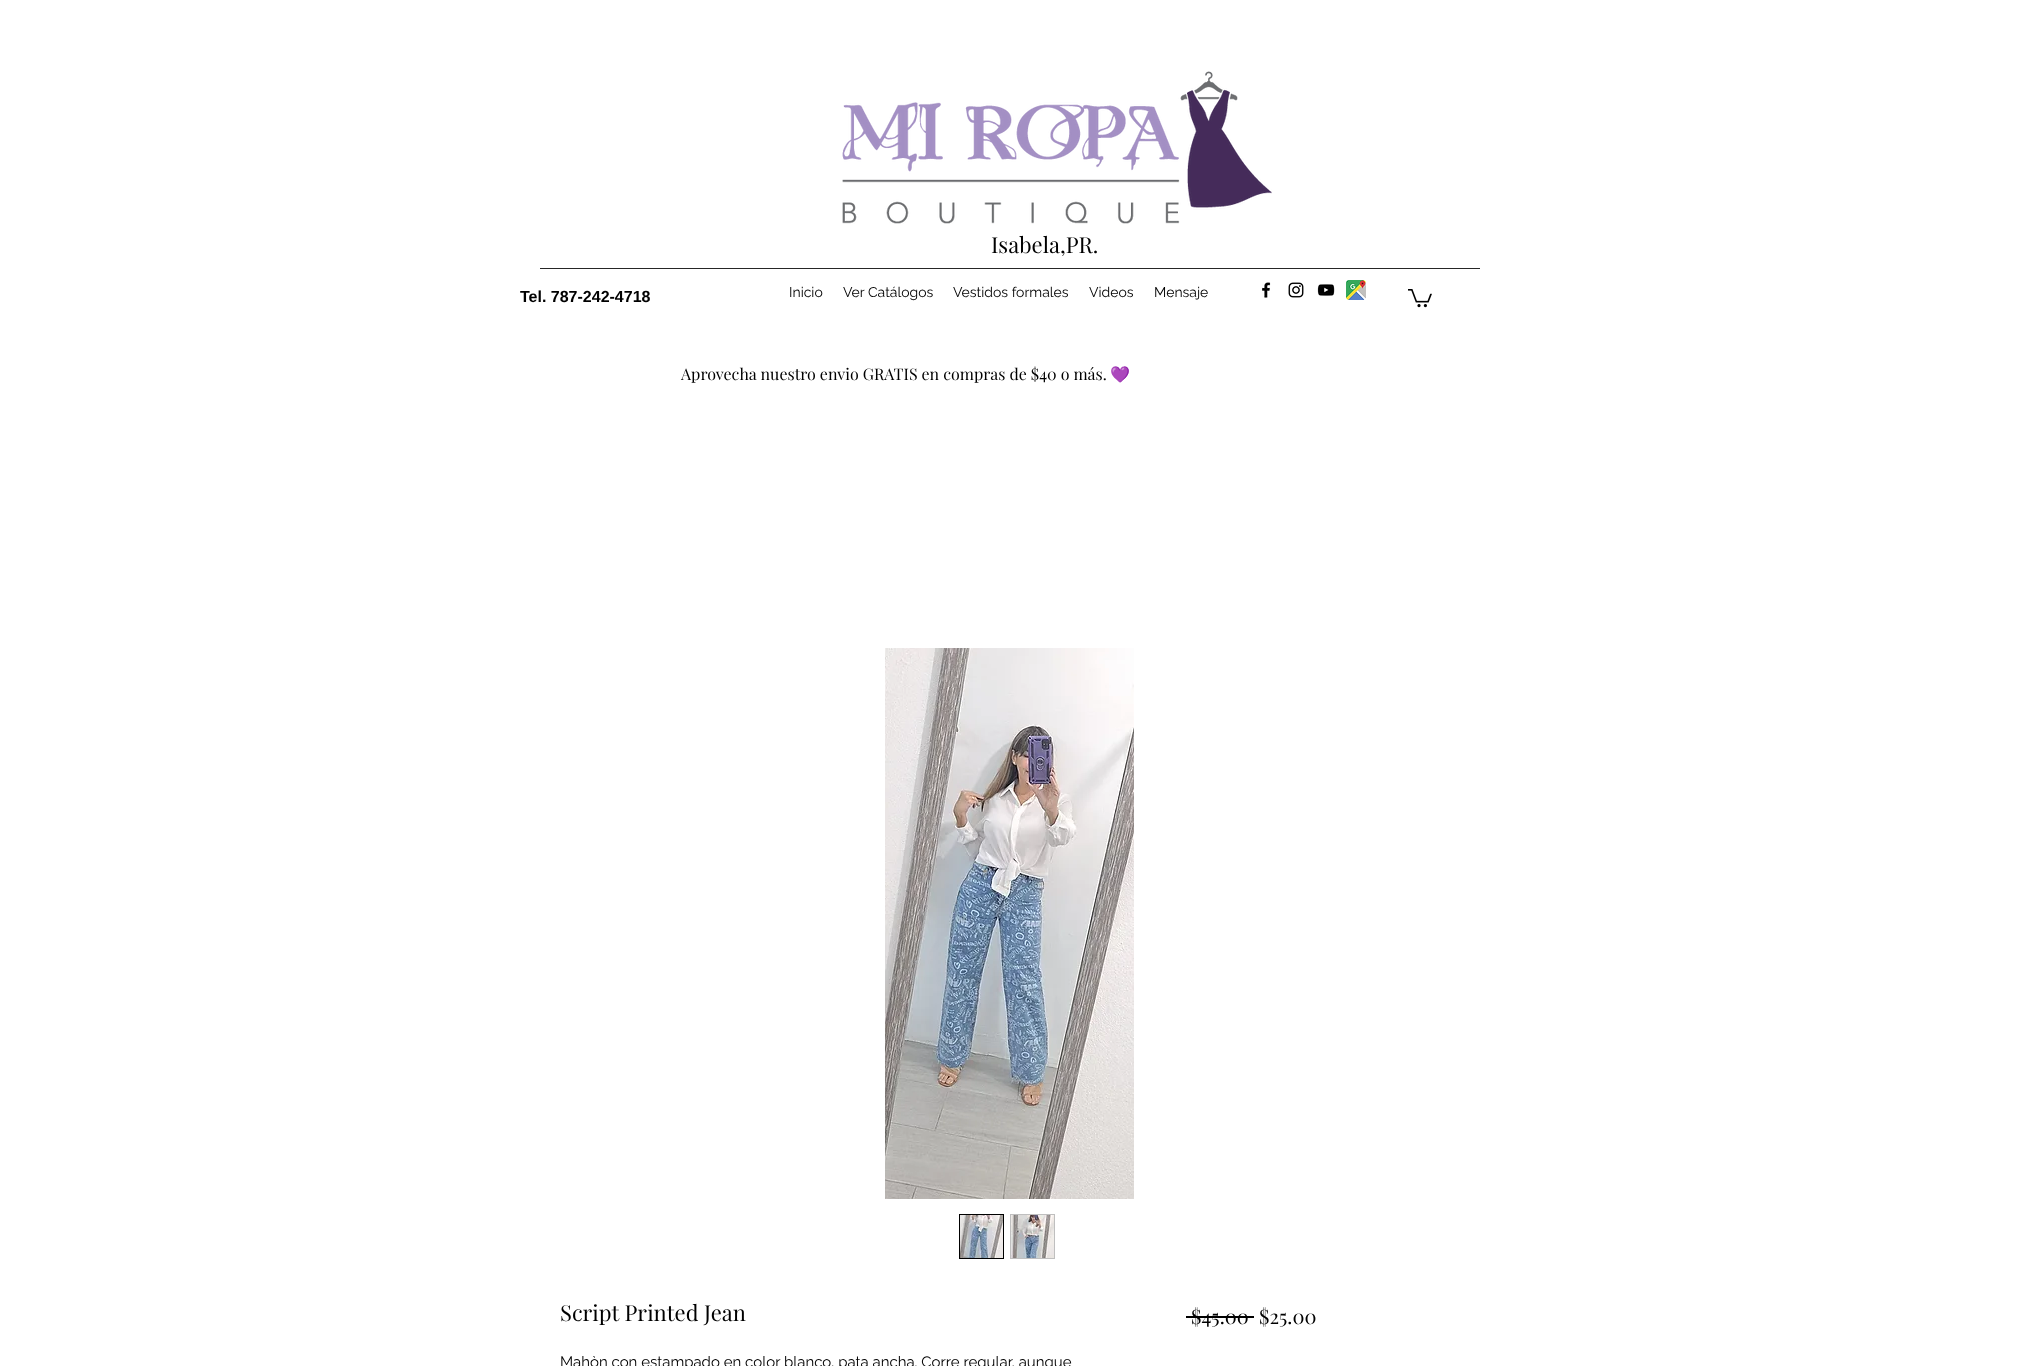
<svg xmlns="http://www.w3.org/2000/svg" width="2019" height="1366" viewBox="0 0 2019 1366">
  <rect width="100%" height="100%" fill="rgb(255,255,255)"/>
  <image x="842" y="71" width="430" height="153" href="pic1.png"/>
  <text x="991" y="253" font-family="Playfair Display" font-size="22" fill="rgb(0,0,0)">Isabela,PR.</text>
  <rect x="540" y="268" width="940" height="1" fill="rgb(38,38,38)"/>
  <text x="520" y="302" font-family="Liberation Sans" font-size="16" font-weight="bold" fill="rgb(0,0,0)">Tel. 787-242-4718</text>
  <g font-family="Raleway" font-size="14" fill="rgb(0,0,0)">
    <text x="789" y="297">Inicio</text>
    <text x="843" y="297">Ver Catálogos</text>
    <text x="953" y="297">Vestidos formales</text>
    <text x="1089" y="297">Videos</text>
    <text x="1154" y="297">Mensaje</text>
  </g>
  <image x="1262" y="282" width="9" height="16" href="pic2.png"/>
  <image x="1288" y="282" width="16" height="16" href="pic3.png"/>
  <image x="1317" y="284" width="18" height="12" href="pic4.png"/>
  <image x="1346" y="280" width="20" height="20" href="pic5.png"/>
  <image x="1408" y="289" width="24" height="19" href="pic6.png"/>
  <text x="681" y="380" font-family="Playfair Display" font-size="16" fill="rgb(0,0,0)">Aprovecha nuestro envio GRATIS en compras de $40 o más.</text>
  <text x="1110" y="380" font-family="Noto Color Emoji" font-size="16" fill="rgb(0,0,0)">💜</text>
  <image x="885" y="648" width="249" height="551" href="pic7.png"/>
  <rect x="959.5" y="1214.5" width="44" height="44" fill="none" stroke="rgb(0,0,0)"/>
  <image x="960" y="1215" width="43" height="43" href="pic8.png"/>
  <rect x="1010" y="1214" width="45" height="45" fill="rgb(191,191,191)"/>
  <image x="1011" y="1215" width="43" height="43" href="pic9.png"/>
  <text x="560" y="1321" font-family="Playfair Display" font-size="22" fill="rgb(0,0,0)">Script Printed Jean</text>
  <text x="560" y="1367" font-family="Raleway" font-size="15" fill="rgb(0,0,0)">Mahòn con estampado en color blanco, pata ancha. Corre regular, aunque</text>
  <text x="1191" y="1324" font-family="Playfair Display" font-size="20" fill="rgb(0,0,0)">$45.00</text>
  <rect x="1186" y="1316" width="68" height="2" fill="rgb(0,0,0)"/>
  <text x="1259" y="1324" font-family="Playfair Display" font-size="20" fill="rgb(0,0,0)">$25.00</text>
</svg>
